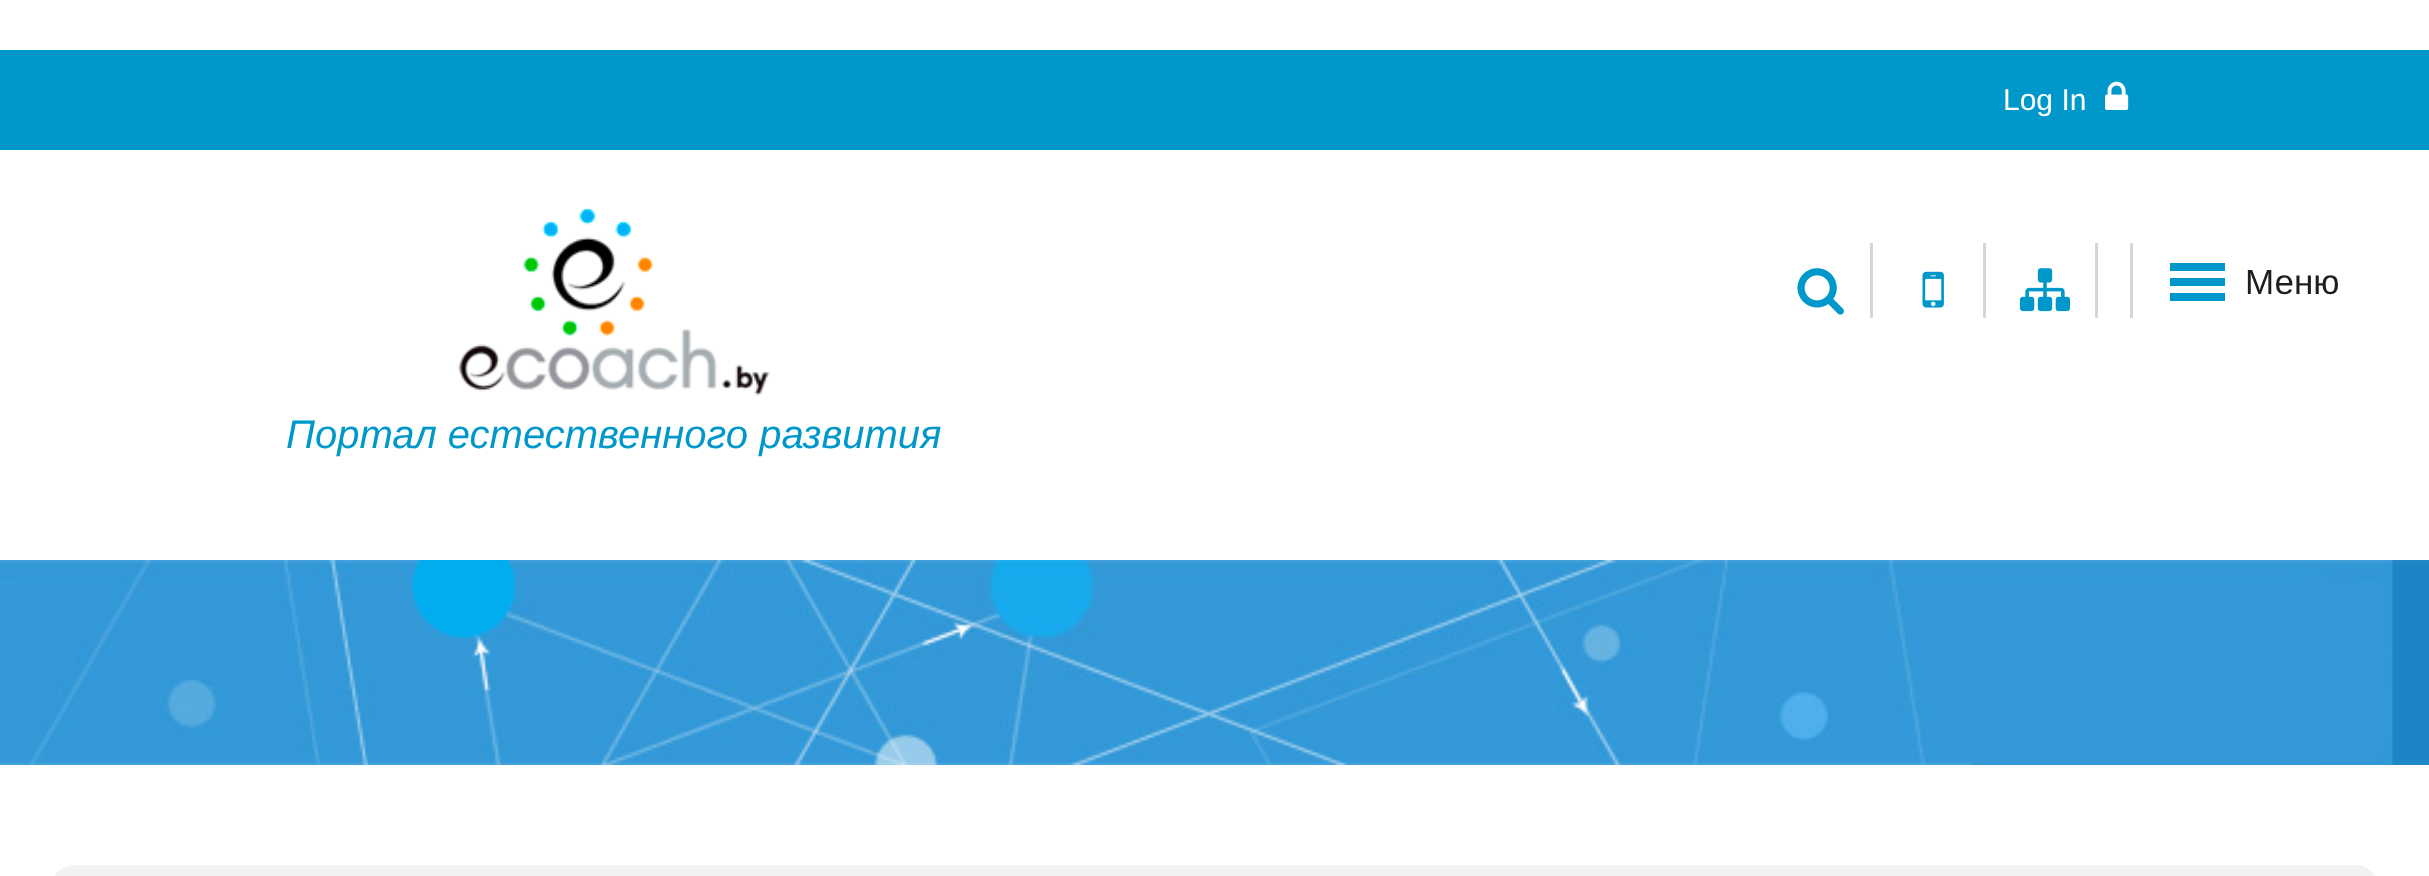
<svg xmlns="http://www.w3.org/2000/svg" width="2429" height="876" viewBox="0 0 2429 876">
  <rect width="100%" height="100%" fill="rgb(255,255,255)"/>
  <rect x="0" y="50" width="2429" height="100" fill="rgb(0,152,202)"/>
  <text x="2003" y="110" font-family="Liberation Sans" font-size="30" fill="rgb(255,255,255)">Log In</text>
  <image x="2105" y="81" width="24" height="29" href="pic1.png"/>
  <rect x="1870" y="243" width="3" height="75" fill="rgb(214,214,214)"/>
  <image x="1797" y="268" width="47" height="47" href="pic2.png"/>
  <rect x="1983" y="243" width="3" height="75" fill="rgb(214,214,214)"/>
  <image x="1922" y="271" width="22" height="37" href="pic3.png"/>
  <rect x="2095" y="243" width="3" height="75" fill="rgb(214,214,214)"/>
  <image x="2020" y="268" width="50" height="44" href="pic4.png"/>
  <rect x="2130" y="243" width="3" height="75" fill="rgb(214,214,214)"/>
  <rect x="2170" y="263" width="55" height="8" fill="rgb(0,152,202)"/>
  <rect x="2170" y="278" width="55" height="8" fill="rgb(0,152,202)"/>
  <text x="2245" y="294" font-family="Liberation Sans" font-size="35" fill="rgb(30,30,30)">Меню</text>
  <rect x="2170" y="293" width="55" height="8" fill="rgb(0,152,202)"/>
  <image x="457" y="207" width="313" height="189" href="pic5.png"/>
  <text x="286" y="448" font-family="Liberation Sans" font-size="40" font-style="italic" fill="rgb(0,152,202)">Портал естественного развития</text>
  <rect x="2392" y="560" width="37" height="205" fill="rgb(34,136,200)"/>
  <rect x="2392" y="564" width="37" height="198" fill="rgb(28,133,198)"/>
  <image x="0" y="560" width="2393" height="205" href="pic6.png"/>
  <path d="M75 865H2355C2369 865 2380 876 2380 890V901H50V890C50 876 61 865 75 865Z" fill="rgb(242,242,242)"/>
</svg>
